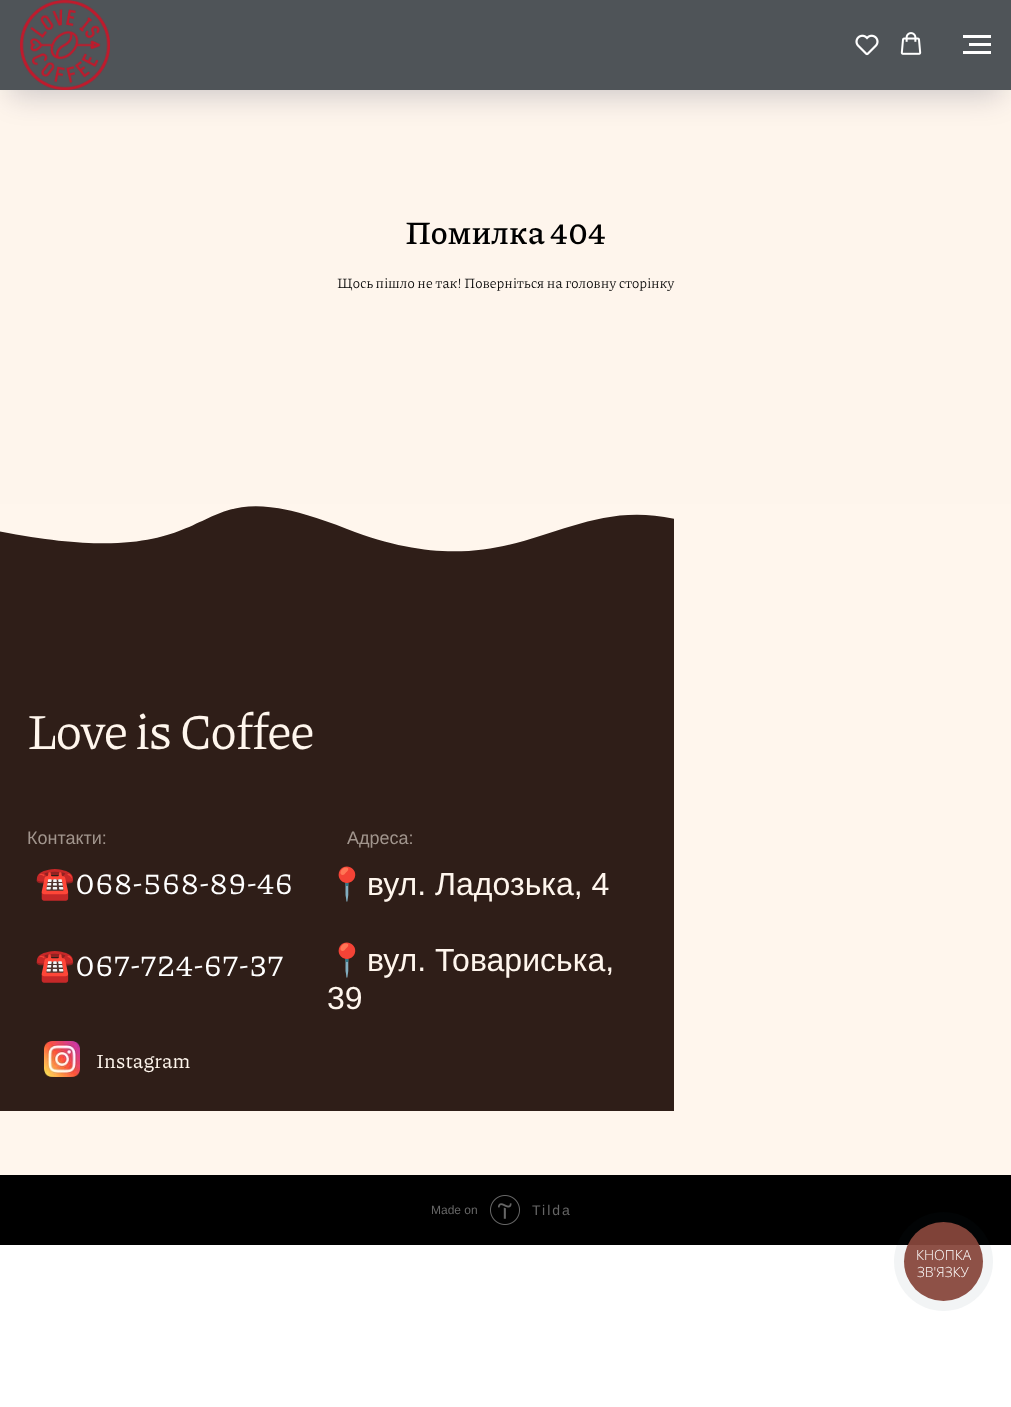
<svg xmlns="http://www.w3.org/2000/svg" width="1011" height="1407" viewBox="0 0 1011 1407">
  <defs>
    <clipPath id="clip1"><rect x="0" y="504" width="674" height="80"/></clipPath>
  </defs>
  <rect width="100%" height="100%" fill="rgb(255,255,255)"/>
  <rect x="0" y="90" width="1011" height="414" fill="rgb(254,245,236)"/>
  <rect x="10" y="25" width="991" height="70" fill="rgba(0,11,48,0.2)" filter="blur(15px)"/>
  <rect x="0" y="0" width="1011" height="90" fill="rgb(79,84,88)"/>
  <image x="20" y="0" width="90" height="90" href="pic1.png"/>
  <image x="855" y="34" width="24" height="22" href="pic2.png"/>
  <image x="900" y="32" width="22" height="23" href="pic3.png"/>
  <rect x="963" y="35" width="28" height="3" fill="rgb(255,255,255)"/>
  <rect x="969" y="43" width="22" height="3" fill="rgb(255,255,255)"/>
  <rect x="963" y="51" width="28" height="3" fill="rgb(255,255,255)"/>
  <text x="405" y="244" font-family="Piazzolla" font-size="32" font-weight="600" fill="rgb(0,0,0)">Помилка 404</text>
  <text x="337" y="288" font-family="Piazzolla" font-size="14" font-weight="300" fill="rgb(0,0,0)">Щось пішло не так! Поверніться на головну сторінку</text>
  <rect x="0" y="504" width="1011" height="671" fill="rgb(255,246,237)"/>
  <g clip-path="url(#clip1)">
    <path d="M-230 529C-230 529-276 473-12 529C253 584 165 457 347 529C530 600 567 474 707 529C846 584 893 529 893 529V584H-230Z" fill="rgb(47,30,24)"/>
  </g>
  <rect x="0" y="584" width="674" height="527" fill="rgb(47,30,24)"/>
  <text x="27" y="749" font-family="Piazzolla" font-size="50" letter-spacing="-1.25" fill="rgb(255,246,237)">Love is Coffee</text>
  <g font-family="Liberation Sans" font-size="18" fill="rgb(161,149,141)">
    <text x="27" y="844">Контакти:</text>
    <text x="347" y="844">Адреса:</text>
  </g>
  <text x="35" y="894" font-family="Noto Color Emoji" font-size="32" fill="rgb(255,255,255)">☎️</text>
  <text x="75" y="894" font-family="Piazzolla" font-size="32" fill="rgb(255,255,255)">068-568-89-46</text>
  <text x="327" y="895" font-family="Noto Color Emoji" font-size="32" fill="rgb(255,246,237)">📍</text>
  <text x="367" y="895" font-family="Liberation Sans" font-size="32" fill="rgb(255,246,237)">вул. Ладозька, 4</text>
  <text x="327" y="971" font-family="Noto Color Emoji" font-size="32" fill="rgb(255,246,237)">📍</text>
  <g font-family="Liberation Sans" font-size="32" fill="rgb(255,246,237)">
    <text x="367" y="971">вул. Товариська,</text>
    <text x="327" y="1009">39</text>
  </g>
  <text x="35" y="976" font-family="Noto Color Emoji" font-size="32" fill="rgb(255,255,255)">☎️</text>
  <text x="75" y="976" font-family="Piazzolla" font-size="32" fill="rgb(255,255,255)">067-724-67-37</text>
  <image x="44" y="1041" width="36" height="36" href="pic4.png"/>
  <text x="96" y="1068" font-family="Piazzolla" font-size="20" fill="rgb(255,246,237)">Instagram</text>
  <rect x="0" y="1175" width="1011" height="70" fill="rgb(0,0,0)"/>
  <text x="431" y="1214" font-family="Liberation Sans" font-size="12" fill="rgb(102,102,102)">Made on</text>
  <image x="490" y="1195" width="30" height="30" href="pic5.png"/>
  <text x="532" y="1215" font-family="Liberation Sans" font-size="14" letter-spacing="2" fill="rgb(102,102,102)">Tilda</text>
  <circle cx="943.5" cy="1261.5" r="49.5" fill="rgba(42,64,93,0.06)"/>
  <circle cx="943.5" cy="1261.5" r="39.5" fill="rgba(135,70,60,0.94)"/>
  <g font-family="Open Sans" font-size="14" font-weight="300" fill="rgb(255,255,255)">
    <text x="916" y="1260">КНОПКА</text>
    <text x="917" y="1277">ЗВ'ЯЗКУ</text>
  </g>
</svg>
